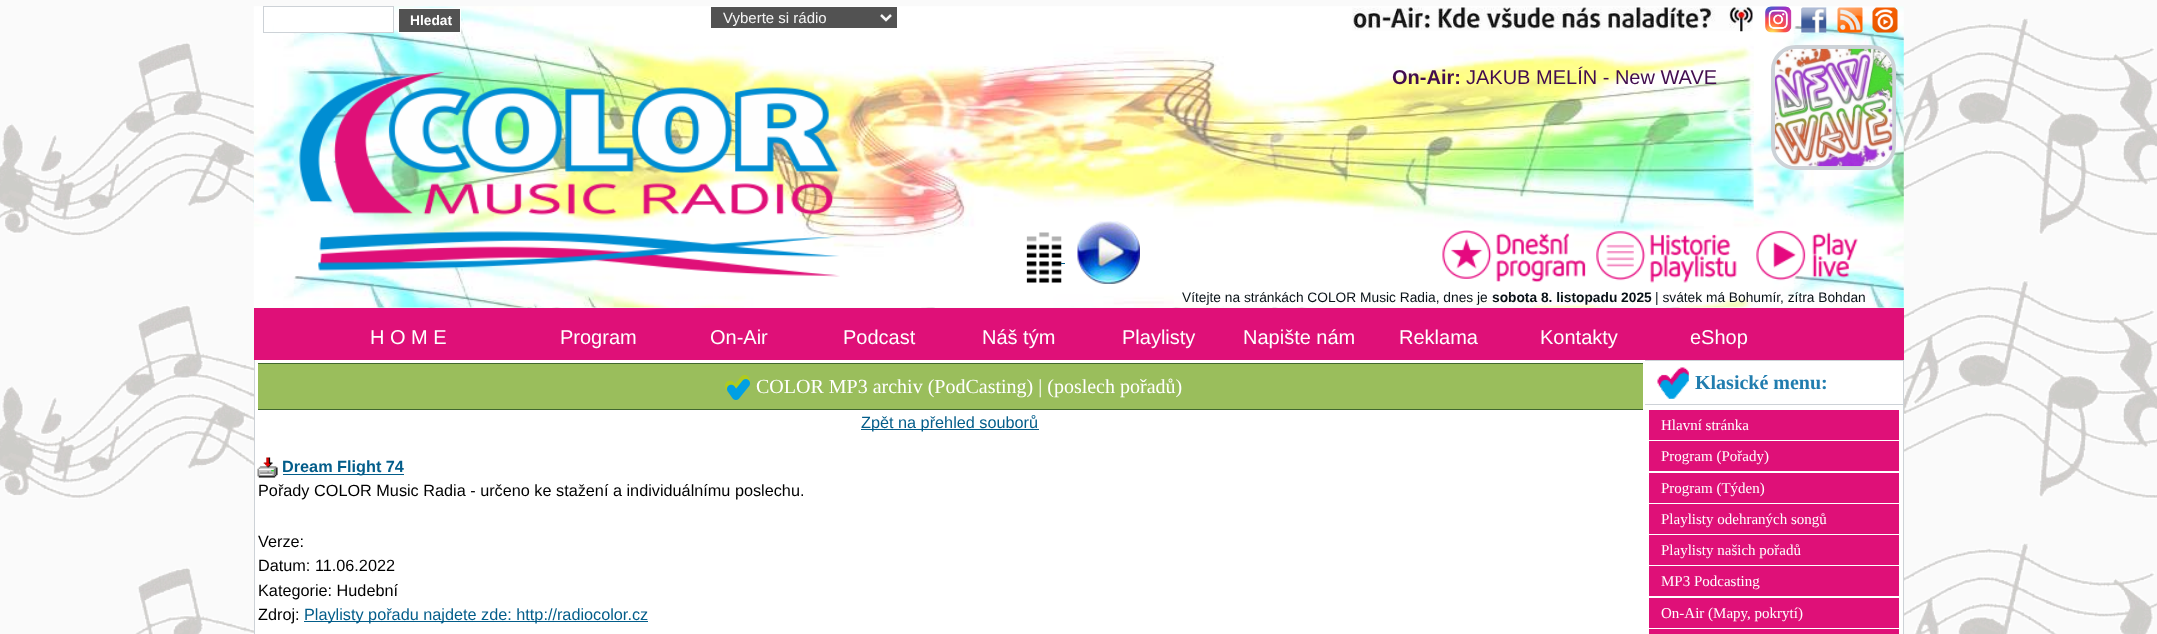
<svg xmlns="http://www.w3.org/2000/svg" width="2157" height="634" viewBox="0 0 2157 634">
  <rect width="100%" height="100%" fill="rgb(250,250,250)"/>
  <image x="0" y="18" width="2157" height="616" href="pic1.png"/>
  <image x="253" y="6" width="1651" height="302" href="pic2.png"/>
  <rect x="274" y="7" width="119" height="25" fill="rgb(255,255,255)"/>
  <rect x="263.5" y="6.5" width="130" height="26" fill="none" stroke="rgb(205,210,215)"/>
  <rect x="398.5" y="8.5" width="62" height="24" fill="rgb(82,82,82)" stroke="rgb(255,255,255)"/>
  <text x="410" y="25" font-family="Liberation Sans" font-size="13.75" font-weight="bold" fill="rgb(255,255,255)">Hledat</text>
  <rect x="711" y="7" width="186" height="21" fill="rgb(82,82,82)"/>
  <path d="M881 15L886 20L891 15" fill="none" stroke="rgb(245,245,245)" stroke-width="2.5"/>
  <text x="723" y="23" font-family="Liberation Sans" font-size="15" fill="rgb(245,245,245)">Vyberte si rádio</text>
  <image x="1352" y="7" width="401" height="25" href="pic3.png"/>
  <image x="1765" y="6" width="27" height="27" href="pic4.png"/>
  <image x="1801" y="7" width="26" height="26" href="pic5.png"/>
  <image x="1837" y="7" width="26" height="26" href="pic6.png"/>
  <image x="1872" y="7" width="26" height="26" href="pic7.png"/>
  <image x="299" y="71" width="541" height="206" href="pic8.png"/>
  <text x="1392" y="84" font-family="Liberation Sans" font-size="20" font-weight="bold" fill="rgb(66,13,78)">On-Air:</text>
  <text x="1466" y="84" font-family="Liberation Sans" font-size="20" fill="rgb(66,13,78)">JAKUB MELÍN - New WAVE</text>
  <rect x="1773" y="47" width="121" height="121" rx="23" fill="none" stroke="rgb(205,210,215)" stroke-width="4"/>
  <image x="1775" y="48" width="118" height="119" href="pic9.png"/>
  <image x="1026" y="232" width="36" height="51" href="pic10.png"/>
  <rect x="1061" y="263" width="4" height="1" fill="rgb(3,93,138)"/>
  <image x="1077" y="221" width="63" height="63" href="pic11.png"/>
  <image x="1442" y="230" width="144" height="53" href="pic12.png"/>
  <image x="1596" y="231" width="141" height="52" href="pic13.png"/>
  <image x="1756" y="230" width="102" height="51" href="pic14.png"/>
  <text x="1182" y="302" font-family="Liberation Sans" font-size="13.75" fill="rgb(8,17,23)">Vítejte na stránkách COLOR Music Radia, dnes je</text>
  <text x="1492" y="302" font-family="Liberation Sans" font-size="13.75" font-weight="bold" fill="rgb(8,17,23)">sobota 8. listopadu 2025</text>
  <text x="1655" y="302" font-family="Liberation Sans" font-size="13.75" fill="rgb(8,17,23)">| svátek má Bohumír, zítra Bohdan</text>
  <rect x="254" y="308" width="1650" height="52" fill="rgb(223,16,120)"/>
  <g font-family="Liberation Sans" font-size="20" fill="rgb(255,255,255)">
    <text x="370" y="344">H O M E</text>
    <text x="560" y="344">Program</text>
    <text x="710" y="344">On-Air</text>
    <text x="843" y="344">Podcast</text>
    <text x="982" y="344">Náš tým</text>
    <text x="1122" y="344">Playlisty</text>
    <text x="1243" y="344">Napište nám</text>
    <text x="1399" y="344">Reklama</text>
    <text x="1540" y="344">Kontakty</text>
    <text x="1690" y="344">eShop</text>
  </g>
  <rect x="255" y="360" width="1648" height="274" fill="rgb(255,255,255)"/>
  <rect x="1903" y="360" width="1" height="274" fill="rgb(205,210,215)"/>
  <rect x="254" y="360" width="1" height="274" fill="rgb(205,210,215)"/>
  <rect x="258" y="364" width="1385" height="45" fill="rgb(154,190,92)"/>
  <rect x="258" y="363" width="1385" height="1" fill="rgb(65,104,47)"/>
  <rect x="258" y="409" width="1385" height="1" fill="rgb(65,104,47)"/>
  <image x="725" y="375" width="25" height="25" href="pic15.png"/>
  <text x="756" y="393" font-family="Liberation Serif" font-size="20" fill="rgb(255,255,255)">COLOR MP3 archiv (PodCasting) | (poslech pořadů)</text>
  <rect x="861" y="429" width="178" height="1" fill="rgb(3,93,138)"/>
  <text x="861" y="428" font-family="Liberation Sans" font-size="16.25" fill="rgb(3,93,138)">Zpět na přehled souborů</text>
  <image x="257" y="457" width="21" height="21" href="pic16.png"/>
  <rect x="283" y="474" width="121" height="1" fill="rgb(3,93,138)"/>
  <text x="282" y="472" font-family="Liberation Sans" font-size="16.25" font-weight="bold" fill="rgb(3,93,138)">Dream Flight 74</text>
  <g font-family="Liberation Sans" font-size="16.25" fill="rgb(0,0,0)">
    <text x="258" y="496">Pořady COLOR Music Radia - určeno ke stažení a individuálnímu poslechu.</text>
    <text>
      <tspan x="258" y="547">Verze:</tspan>
      <tspan x="258" y="571">Datum: 11.06.2022</tspan>
      <tspan x="258" y="596">Kategorie: Hudební</tspan>
      <tspan x="258" y="620">Zdroj:</tspan>
    </text>
  </g>
  <rect x="304" y="621" width="344" height="1" fill="rgb(3,93,138)"/>
  <text x="304" y="620" font-family="Liberation Sans" font-size="16.25" fill="rgb(3,93,138)">Playlisty pořadu najdete zde: http://radiocolor.cz</text>
  <image x="1657" y="367" width="32" height="32" href="pic17.png"/>
  <rect x="1645" y="360" width="258" height="1" fill="rgb(205,210,215)"/>
  <rect x="1645" y="404" width="258" height="1" fill="rgb(205,210,215)"/>
  <text x="1695" y="389" font-family="Liberation Serif" font-size="20" font-weight="bold" fill="rgb(33,125,175)">Klasické menu:</text>
  <rect x="1649" y="410" width="250" height="30" fill="rgb(223,16,120)"/>
  <text x="1661" y="430" font-family="Liberation Serif" font-size="15" fill="rgb(255,255,255)">Hlavní stránka</text>
  <rect x="1649" y="441" width="250" height="30" fill="rgb(223,16,120)"/>
  <text x="1661" y="461" font-family="Liberation Serif" font-size="15" fill="rgb(255,255,255)">Program (Pořady)</text>
  <rect x="1649" y="473" width="250" height="30" fill="rgb(223,16,120)"/>
  <text x="1661" y="493" font-family="Liberation Serif" font-size="15" fill="rgb(255,255,255)">Program (Týden)</text>
  <rect x="1649" y="504" width="250" height="30" fill="rgb(223,16,120)"/>
  <text x="1661" y="524" font-family="Liberation Serif" font-size="15" fill="rgb(255,255,255)">Playlisty odehraných songů</text>
  <rect x="1649" y="535" width="250" height="30" fill="rgb(223,16,120)"/>
  <text x="1661" y="555" font-family="Liberation Serif" font-size="15" fill="rgb(255,255,255)">Playlisty našich pořadů</text>
  <rect x="1649" y="566" width="250" height="30" fill="rgb(223,16,120)"/>
  <text x="1661" y="586" font-family="Liberation Serif" font-size="15" fill="rgb(255,255,255)">MP3 Podcasting</text>
  <rect x="1649" y="598" width="250" height="30" fill="rgb(223,16,120)"/>
  <text x="1661" y="618" font-family="Liberation Serif" font-size="15" fill="rgb(255,255,255)">On-Air (Mapy, pokrytí)</text>
  <rect x="1649" y="629" width="250" height="5" fill="rgb(223,16,120)"/>
</svg>
